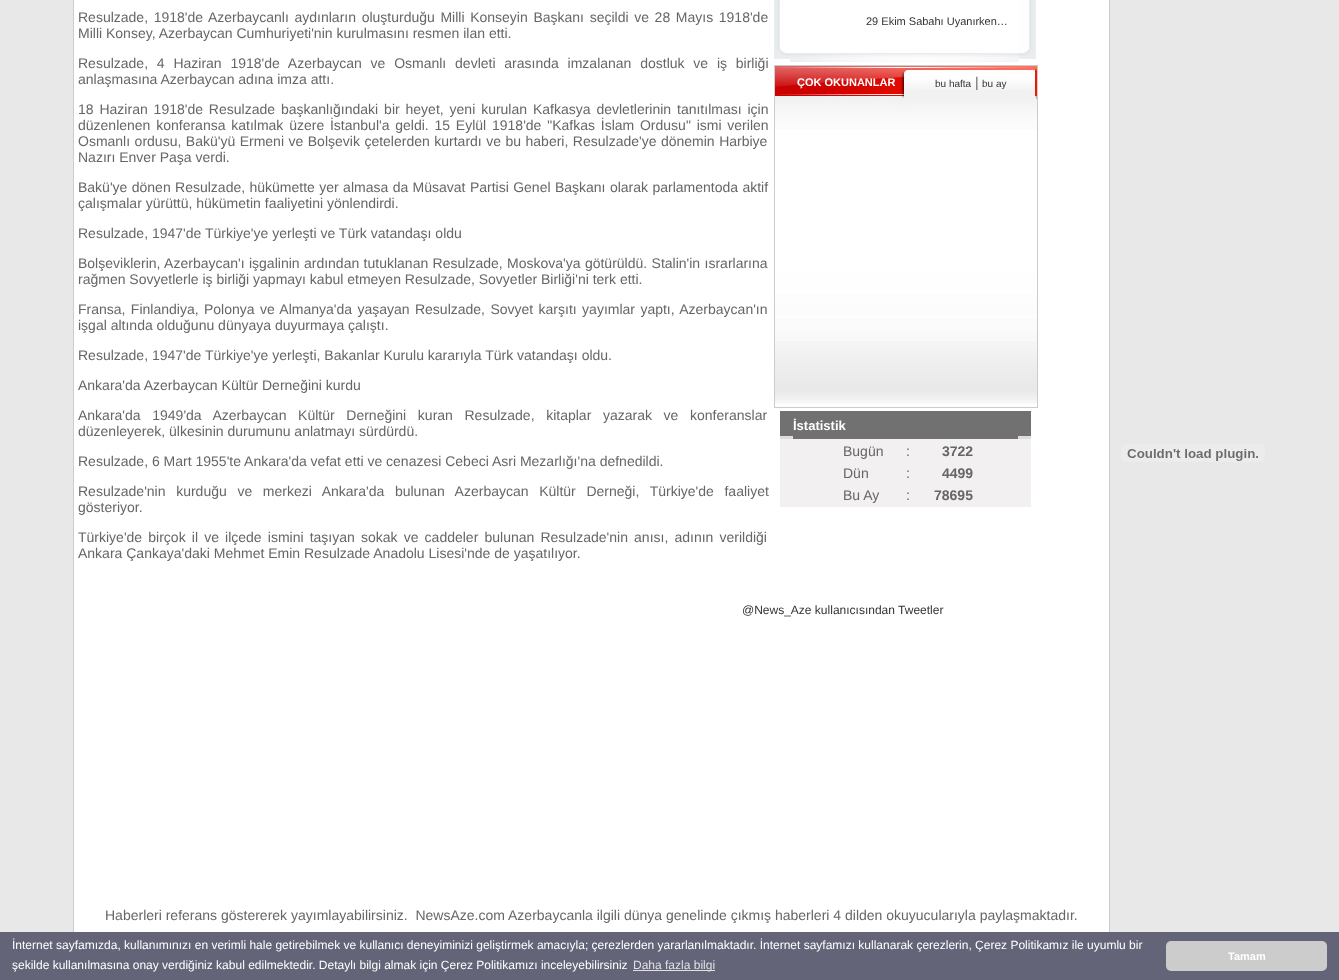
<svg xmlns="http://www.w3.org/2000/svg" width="1339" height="980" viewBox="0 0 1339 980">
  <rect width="100%" height="100%" fill="rgb(232,232,232)"/>
  <rect x="73" y="0" width="1" height="932" fill="rgb(204,204,204)"/>
  <rect x="74" y="0" width="1035" height="932" fill="rgb(255,255,255)"/>
  <rect x="1109" y="0" width="1" height="932" fill="rgb(204,204,204)"/>
  <g font-family="Liberation Sans" font-size="14" fill="rgb(102,102,102)">
    <text>
      <tspan x="78" y="22" word-spacing="1.75">Resulzade, 1918'de Azerbaycanlı aydınların oluşturduğu Milli Konseyin Başkanı seçildi ve 28 Mayıs 1918'de</tspan>
      <tspan x="78" y="38">Milli Konsey, Azerbaycan Cumhuriyeti'nin kurulmasını resmen ilan etti.</tspan>
    </text>
    <text>
      <tspan x="78" y="68" word-spacing="4.9">Resulzade, 4 Haziran 1918'de Azerbaycan ve Osmanlı devleti arasında imzalanan dostluk ve iş birliği</tspan>
      <tspan x="78" y="84">anlaşmasına Azerbaycan adına imza attı.</tspan>
    </text>
    <text>
      <tspan x="78" y="114" word-spacing="2">18 Haziran 1918'de Resulzade başkanlığındaki bir heyet, yeni kurulan Kafkasya devletlerinin tanıtılması için</tspan>
      <tspan x="78" y="130" word-spacing="1.9">düzenlenen konferansa katılmak üzere İstanbul'a geldi. 15 Eylül 1918'de "Kafkas İslam Ordusu" ismi verilen</tspan>
      <tspan x="78" y="146" word-spacing="0.6">Osmanlı ordusu, Bakü'yü Ermeni ve Bolşevik çetelerden kurtardı ve bu haberi, Resulzade'ye dönemin Harbiye</tspan>
      <tspan x="78" y="162">Nazırı Enver Paşa verdi.</tspan>
    </text>
    <text>
      <tspan x="78" y="192" word-spacing="0.5">Bakü'ye dönen Resulzade, hükümette yer almasa da Müsavat Partisi Genel Başkanı olarak parlamentoda aktif</tspan>
      <tspan x="78" y="208">çalışmalar yürüttü, hükümetin faaliyetini yönlendirdi.</tspan>
    </text>
    <text x="78" y="238">Resulzade, 1947'de Türkiye'ye yerleşti ve Türk vatandaşı oldu</text>
    <text>
      <tspan x="78" y="268" word-spacing="0.5">Bolşeviklerin, Azerbaycan'ı işgalinin ardından tutuklanan Resulzade, Moskova'ya götürüldü. Stalin'in ısrarlarına</tspan>
      <tspan x="78" y="284">rağmen Sovyetlerle iş birliği yapmayı kabul etmeyen Resulzade, Sovyetler Birliği'ni terk etti.</tspan>
    </text>
    <text>
      <tspan x="78" y="314" word-spacing="1.5">Fransa, Finlandiya, Polonya ve Almanya'da yaşayan Resulzade, Sovyet karşıtı yayımlar yaptı, Azerbaycan'ın</tspan>
      <tspan x="78" y="330">işgal altında olduğunu dünyaya duyurmaya çalıştı.</tspan>
    </text>
    <text x="78" y="360">Resulzade, 1947'de Türkiye'ye yerleşti, Bakanlar Kurulu kararıyla Türk vatandaşı oldu.</text>
    <text x="78" y="390">Ankara'da Azerbaycan Kültür Derneğini kurdu</text>
    <text>
      <tspan x="78" y="420" word-spacing="7.75">Ankara'da 1949'da Azerbaycan Kültür Derneğini kuran Resulzade, kitaplar yazarak ve konferanslar</tspan>
      <tspan x="78" y="436">düzenleyerek, ülkesinin durumunu anlatmayı sürdürdü.</tspan>
    </text>
    <text x="78" y="466">Resulzade, 6 Mart 1955'te Ankara'da vefat etti ve cenazesi Cebeci Asri Mezarlığı'na defnedildi.</text>
    <text>
      <tspan x="78" y="496" word-spacing="6.75">Resulzade'nin kurduğu ve merkezi Ankara'da bulunan Azerbaycan Kültür Derneği, Türkiye'de faaliyet</tspan>
      <tspan x="78" y="512">gösteriyor.</tspan>
    </text>
    <text>
      <tspan x="78" y="542" word-spacing="2.25">Türkiye'de birçok il ve ilçede ismini taşıyan sokak ve caddeler bulunan Resulzade'nin anısı, adının verildiği</tspan>
      <tspan x="78" y="558">Ankara Çankaya'daki Mehmet Emin Resulzade Anadolu Lisesi'nde de yaşatılıyor.</tspan>
    </text>
  </g>
  <image x="774" y="0" width="16" height="59" href="pic1.png"/>
  <image x="790" y="53" width="229" height="9" href="pic2.png"/>
  <text x="866" y="25" font-family="Liberation Sans" font-size="11" fill="rgb(51,51,51)">29 Ekim Sabahı Uyanırken…</text>
  <image x="1019" y="0" width="17" height="59" href="pic3.png"/>
  <rect x="774" y="65" width="264" height="343" fill="rgb(204,204,204)"/>
  <image x="775" y="66" width="262" height="341" href="pic4.png"/>
  <text x="797" y="86" font-family="Liberation Sans" font-size="11" font-weight="bold" fill="rgb(255,255,255)">ÇOK OKUNANLAR</text>
  <text x="935" y="87" font-family="Liberation Sans" font-size="10" fill="rgb(51,51,51)">bu hafta</text>
  <text x="975" y="87" font-family="Liberation Sans" font-size="14" fill="rgb(102,102,102)">|</text>
  <text x="982" y="87" font-family="Liberation Sans" font-size="10" fill="rgb(51,51,51)">bu ay</text>
  <rect x="780" y="436" width="251" height="3" fill="rgb(222,221,221)"/>
  <rect x="780" y="411" width="13" height="25" fill="rgb(113,113,113)"/>
  <rect x="793" y="411" width="225" height="28" fill="rgb(113,113,113)"/>
  <text x="793" y="430" font-family="Liberation Sans" font-size="13" font-weight="bold" fill="rgb(255,255,255)">İstatistik</text>
  <rect x="1018" y="411" width="13" height="25" fill="rgb(113,113,113)"/>
  <rect x="780" y="439" width="251" height="68" fill="rgb(242,240,241)"/>
  <g font-family="Liberation Sans" font-size="14" fill="rgb(102,102,102)">
    <text x="843" y="456">Bugün</text>
    <text x="906" y="456">:</text>
  </g>
  <text x="942" y="456" font-family="Liberation Sans" font-size="14" font-weight="bold" fill="rgb(102,102,102)">3722</text>
  <g font-family="Liberation Sans" font-size="14" fill="rgb(102,102,102)">
    <text x="843" y="478">Dün</text>
    <text x="906" y="478">:</text>
  </g>
  <text x="942" y="478" font-family="Liberation Sans" font-size="14" font-weight="bold" fill="rgb(102,102,102)">4499</text>
  <g font-family="Liberation Sans" font-size="14" fill="rgb(102,102,102)">
    <text x="843" y="500">Bu Ay</text>
    <text x="906" y="500">:</text>
  </g>
  <text x="934" y="500" font-family="Liberation Sans" font-size="14" font-weight="bold" fill="rgb(102,102,102)">78695</text>
  <text x="742" y="614" font-family="Liberation Sans" font-size="12" fill="rgb(51,51,51)">@News_Aze kullanıcısından Tweetler</text>
  <text x="105" y="920" font-family="Liberation Sans" font-size="14" fill="rgb(102,102,102)" xml:space="preserve">Haberleri referans göstererek yayımlayabilirsiniz.  NewsAze.com Azerbaycanla ilgili dünya genelinde çıkmış haberleri 4 dilden okuyucularıyla paylaşmaktadır.</text>
  <image x="1121" y="444" width="144" height="18" href="pic5.png"/>
  <rect x="0" y="932" width="1339" height="48" fill="rgb(100,100,120)"/>
  <g font-family="Liberation Sans" font-size="12" fill="rgb(255,255,255)">
    <text>
      <tspan x="12" y="949">İnternet sayfamızda, kullanımınızı en verimli hale getirebilmek ve kullanıcı deneyiminizi geliştirmek amacıyla; çerezlerden yararlanılmaktadır. İnternet sayfamızı kullanarak çerezlerin, Çerez Politikamız ile uyumlu bir</tspan>
      <tspan x="12" y="969">şekilde kullanılmasına onay verdiğiniz kabul edilmektedir. Detaylı bilgi almak için Çerez Politikamızı inceleyebilirsiniz</tspan>
    </text>
  </g>
  <rect x="633" y="970" width="82" height="1" fill="rgb(224,224,228)"/>
  <text x="633" y="969" font-family="Liberation Sans" font-size="12" fill="rgb(224,224,228)">Daha fazla bilgi</text>
  <rect x="1166" y="941" width="161" height="30" rx="5" fill="rgb(204,204,204)"/>
  <text x="1228" y="960" font-family="Liberation Sans" font-size="11" font-weight="bold" fill="rgb(255,255,255)">Tamam</text>
</svg>
